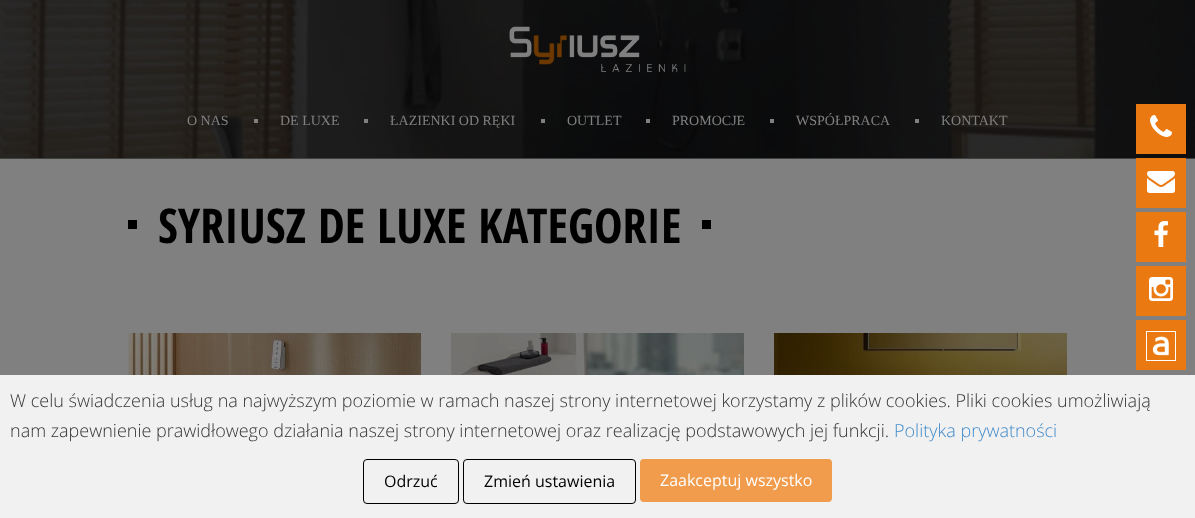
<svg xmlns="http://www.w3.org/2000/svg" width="1195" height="518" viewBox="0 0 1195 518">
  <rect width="100%" height="100%" fill="rgb(128,128,128)"/>
  <image x="0" y="0" width="1195" height="158" href="pic1.png"/>
  <rect x="0" y="158" width="1195" height="1" fill="rgb(63,65,62)"/>
  <image x="509" y="26" width="177" height="46" href="pic2.png"/>
  <text x="187" y="125" font-family="Liberation Serif" font-size="14" fill="rgb(128,128,128)">O NAS</text>
  <rect x="254" y="119" width="4" height="4" fill="rgb(128,128,128)"/>
  <text x="280" y="125" font-family="Liberation Serif" font-size="14" fill="rgb(128,128,128)">DE LUXE</text>
  <rect x="364" y="119" width="4" height="4" fill="rgb(128,128,128)"/>
  <text x="390" y="125" font-family="Liberation Serif" font-size="14" fill="rgb(128,128,128)">ŁAZIENKI OD RĘKI</text>
  <rect x="541" y="119" width="4" height="4" fill="rgb(128,128,128)"/>
  <text x="567" y="125" font-family="Liberation Serif" font-size="14" fill="rgb(128,128,128)">OUTLET</text>
  <rect x="646" y="119" width="4" height="4" fill="rgb(128,128,128)"/>
  <text x="672" y="125" font-family="Liberation Serif" font-size="14" fill="rgb(128,128,128)">PROMOCJE</text>
  <rect x="770" y="119" width="4" height="4" fill="rgb(128,128,128)"/>
  <text x="796" y="125" font-family="Liberation Serif" font-size="14" fill="rgb(128,128,128)">WSPÓŁPRACA</text>
  <rect x="915" y="119" width="4" height="4" fill="rgb(128,128,128)"/>
  <text x="941" y="125" font-family="Liberation Serif" font-size="14" fill="rgb(128,128,128)">KONTAKT</text>
  <rect x="1136" y="104" width="50" height="50" fill="rgb(233,121,16)"/>
  <image x="1150" y="115" width="22" height="22" href="pic3.png"/>
  <rect x="1136" y="158" width="50" height="50" fill="rgb(233,121,16)"/>
  <image x="1147" y="171" width="28" height="22" href="pic4.png"/>
  <rect x="1136" y="212" width="50" height="50" fill="rgb(233,121,16)"/>
  <image x="1154" y="221" width="14" height="26" href="pic5.png"/>
  <rect x="1136" y="266" width="50" height="50" fill="rgb(233,121,16)"/>
  <image x="1149" y="277" width="24" height="24" href="pic6.png"/>
  <rect x="1136" y="320" width="50" height="50" fill="rgb(233,121,16)"/>
  <rect x="1146.5" y="331.5" width="29" height="29" fill="none" stroke="rgb(255,255,255)"/>
  <image x="1152" y="336" width="17" height="20" href="pic7.png"/>
  <rect x="128" y="220" width="9" height="9" fill="rgb(0,0,0)"/>
  <text x="158" y="243" font-family="Open Sans Condensed" font-size="48" font-weight="bold" fill="rgb(0,0,0)">SYRIUSZ DE LUXE KATEGORIE</text>
  <rect x="702" y="220" width="9" height="9" fill="rgb(0,0,0)"/>
  <image x="128" y="333" width="293" height="42" href="pic8.png"/>
  <image x="451" y="333" width="293" height="42" href="pic9.png"/>
  <image x="774" y="333" width="293" height="42" href="pic10.png"/>
  <rect x="0" y="375" width="1195" height="143" fill="rgb(241,241,241)"/>
  <g font-family="Open Sans" font-size="18" font-weight="300" fill="rgb(53,53,53)">
    <text>
      <tspan x="10" y="407">W celu świadczenia usług na najwyższym poziomie w ramach naszej strony internetowej korzystamy z plików cookies. Pliki cookies umożliwiają</tspan>
      <tspan x="10" y="437">nam zapewnienie prawidłowego działania naszej strony internetowej oraz realizację podstawowych jej funkcji.</tspan>
    </text>
  </g>
  <text x="894" y="437" font-family="Open Sans" font-size="18" font-weight="300" fill="rgb(66,139,202)">Polityka prywatności</text>
  <rect x="363.5" y="459.5" width="95" height="44" rx="3.5" fill="none" stroke="rgb(0,0,0)"/>
  <text x="384" y="487" font-family="Open Sans" font-size="16" fill="rgb(0,0,0)">Odrzuć</text>
  <rect x="463.5" y="459.5" width="172" height="44" rx="3.5" fill="none" stroke="rgb(0,0,0)"/>
  <text x="484" y="487" font-family="Open Sans" font-size="16" fill="rgb(0,0,0)">Zmień ustawienia</text>
  <rect x="640" y="459" width="192" height="43" rx="4" fill="rgb(241,156,76)"/>
  <text x="660" y="486" font-family="Open Sans" font-size="16" fill="rgb(255,255,255)">Zaakceptuj wszystko</text>
</svg>
